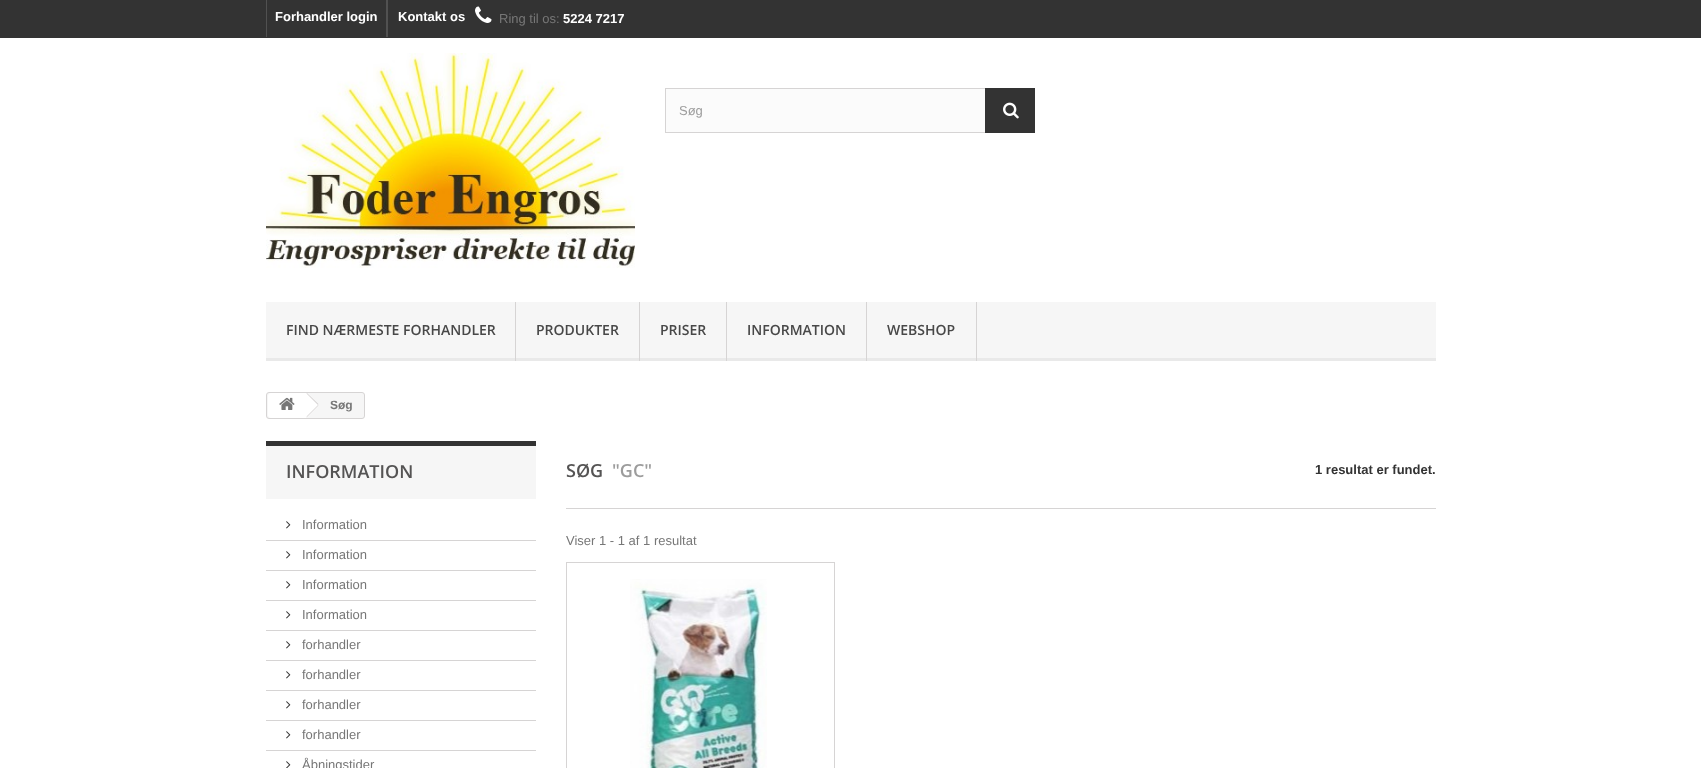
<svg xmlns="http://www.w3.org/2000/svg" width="1701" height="768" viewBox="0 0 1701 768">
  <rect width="100%" height="100%" fill="rgb(255,255,255)"/>
  <rect x="0" y="0" width="1701" height="38" fill="rgb(51,51,51)"/>
  <rect x="386" y="0" width="2" height="37" fill="rgb(81,81,81)"/>
  <rect x="266" y="0" width="1" height="37" fill="rgb(81,81,81)"/>
  <g font-family="Liberation Sans" font-size="13" font-weight="bold" fill="rgb(255,255,255)">
    <text x="275" y="21">Forhandler login</text>
    <text x="398" y="21">Kontakt os</text>
  </g>
  <image x="475" y="6" width="17" height="17" href="pic1.png"/>
  <text x="499" y="23" font-family="Liberation Sans" font-size="13" fill="rgb(119,119,119)">Ring til os:</text>
  <text x="563" y="23" font-family="Liberation Sans" font-size="13" font-weight="bold" fill="rgb(255,255,255)">5224 7217</text>
  <image x="266" y="53" width="369" height="215" href="pic2.png"/>
  <rect x="666" y="89" width="319" height="43" fill="rgb(251,251,251)"/>
  <rect x="665.5" y="88.5" width="369" height="44" fill="none" stroke="rgb(214,212,212)"/>
  <text x="679" y="115" font-family="Liberation Sans" font-size="13" fill="rgb(156,156,156)">Søg</text>
  <rect x="985" y="88" width="50" height="45" fill="rgb(51,51,51)"/>
  <image x="1003" y="102" width="16" height="17" href="pic3.png"/>
  <rect x="266" y="302" width="1170" height="56" fill="rgb(246,246,246)"/>
  <rect x="266" y="358" width="1170" height="3" fill="rgb(233,233,233)"/>
  <rect x="515" y="302" width="1" height="59" fill="rgb(214,212,212)"/>
  <text x="286" y="335" font-family="Open Sans" font-size="14" font-weight="600" fill="rgb(72,72,72)">FIND NÆRMESTE FORHANDLER</text>
  <rect x="639" y="302" width="1" height="59" fill="rgb(214,212,212)"/>
  <text x="536" y="335" font-family="Open Sans" font-size="14" font-weight="600" fill="rgb(72,72,72)">PRODUKTER</text>
  <rect x="726" y="302" width="1" height="59" fill="rgb(214,212,212)"/>
  <text x="660" y="335" font-family="Open Sans" font-size="14" font-weight="600" fill="rgb(72,72,72)">PRISER</text>
  <rect x="866" y="302" width="1" height="59" fill="rgb(214,212,212)"/>
  <text x="747" y="335" font-family="Open Sans" font-size="14" font-weight="600" fill="rgb(72,72,72)">INFORMATION</text>
  <rect x="976" y="302" width="1" height="59" fill="rgb(214,212,212)"/>
  <text x="887" y="335" font-family="Open Sans" font-size="14" font-weight="600" fill="rgb(72,72,72)">WEBSHOP</text>
  <rect x="266.5" y="392.5" width="98" height="26" rx="2.5" fill="rgb(246,246,246)" stroke="rgb(214,212,212)"/>
  <path d="M271 393H306V418H271C269.5 418 268 416.5 268 415V396C268 394.5 269.5 393 271 393Z" fill="rgb(255,255,255)"/>
  <path d="M308 393.5L318 403.5C318.5 404.5 318.5 405.5 318 406.5L308 416.5C307 417 306 417 305 416.5L295 406.5C294.5 405.5 294.5 404.5 295 403.5L305 393.5C306 393 307 393 308 393.5Z" fill="rgb(255,255,255)"/>
  <image x="279" y="397" width="16" height="13" href="pic4.png"/>
  <path d="M307 393L318.5 404L318 405L306.5 393.5ZM318 405L318.5 405.5L307 417L306.5 416.5Z" fill="rgb(214,212,212)"/>
  <text x="330" y="409" font-family="Liberation Sans" font-size="12" font-weight="bold" fill="rgb(119,119,119)">Søg</text>
  <rect x="266" y="446" width="270" height="53" fill="rgb(246,246,246)"/>
  <rect x="266" y="441" width="270" height="5" fill="rgb(51,51,51)"/>
  <text x="286" y="478" font-family="Open Sans" font-size="18" font-weight="600" fill="rgb(85,84,84)">INFORMATION</text>
  <image x="286" y="521" width="5" height="8" href="pic5.png"/>
  <text x="302" y="529" font-family="Liberation Sans" font-size="13" fill="rgb(119,119,119)">Information</text>
  <rect x="266" y="540" width="270" height="1" fill="rgb(214,212,212)"/>
  <image x="286" y="551" width="5" height="8" href="pic5.png"/>
  <text x="302" y="559" font-family="Liberation Sans" font-size="13" fill="rgb(119,119,119)">Information</text>
  <rect x="266" y="570" width="270" height="1" fill="rgb(214,212,212)"/>
  <image x="286" y="581" width="5" height="8" href="pic5.png"/>
  <text x="302" y="589" font-family="Liberation Sans" font-size="13" fill="rgb(119,119,119)">Information</text>
  <rect x="266" y="600" width="270" height="1" fill="rgb(214,212,212)"/>
  <image x="286" y="611" width="5" height="8" href="pic5.png"/>
  <text x="302" y="619" font-family="Liberation Sans" font-size="13" fill="rgb(119,119,119)">Information</text>
  <rect x="266" y="630" width="270" height="1" fill="rgb(214,212,212)"/>
  <image x="286" y="641" width="5" height="8" href="pic5.png"/>
  <text x="302" y="649" font-family="Liberation Sans" font-size="13" fill="rgb(119,119,119)">forhandler</text>
  <rect x="266" y="660" width="270" height="1" fill="rgb(214,212,212)"/>
  <image x="286" y="671" width="5" height="8" href="pic5.png"/>
  <text x="302" y="679" font-family="Liberation Sans" font-size="13" fill="rgb(119,119,119)">forhandler</text>
  <rect x="266" y="690" width="270" height="1" fill="rgb(214,212,212)"/>
  <image x="286" y="701" width="5" height="8" href="pic5.png"/>
  <text x="302" y="709" font-family="Liberation Sans" font-size="13" fill="rgb(119,119,119)">forhandler</text>
  <rect x="266" y="720" width="270" height="1" fill="rgb(214,212,212)"/>
  <image x="286" y="731" width="5" height="8" href="pic5.png"/>
  <text x="302" y="739" font-family="Liberation Sans" font-size="13" fill="rgb(119,119,119)">forhandler</text>
  <rect x="266" y="750" width="270" height="1" fill="rgb(214,212,212)"/>
  <image x="286" y="761" width="5" height="7" href="pic6.png"/>
  <text x="302" y="769" font-family="Liberation Sans" font-size="13" fill="rgb(119,119,119)">Åbningstider</text>
  <text x="566" y="477" font-family="Open Sans" font-size="18" font-weight="600" fill="rgb(85,84,84)">SØG</text>
  <text x="612" y="477" font-family="Open Sans" font-size="18" font-weight="600" fill="rgb(156,156,156)">"GC"</text>
  <text x="1315" y="474" font-family="Liberation Sans" font-size="13" font-weight="bold" fill="rgb(51,51,51)">1 resultat er fundet.</text>
  <rect x="566" y="508" width="870" height="1" fill="rgb(214,212,212)"/>
  <text x="566" y="545" font-family="Liberation Sans" font-size="13" fill="rgb(119,119,119)">Viser 1 - 1 af 1 resultat</text>
  <rect x="566.5" y="562.5" width="268" height="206" fill="none" stroke="rgb(214,212,212)"/>
  <image x="630" y="579" width="137" height="189" href="pic7.png"/>
</svg>
